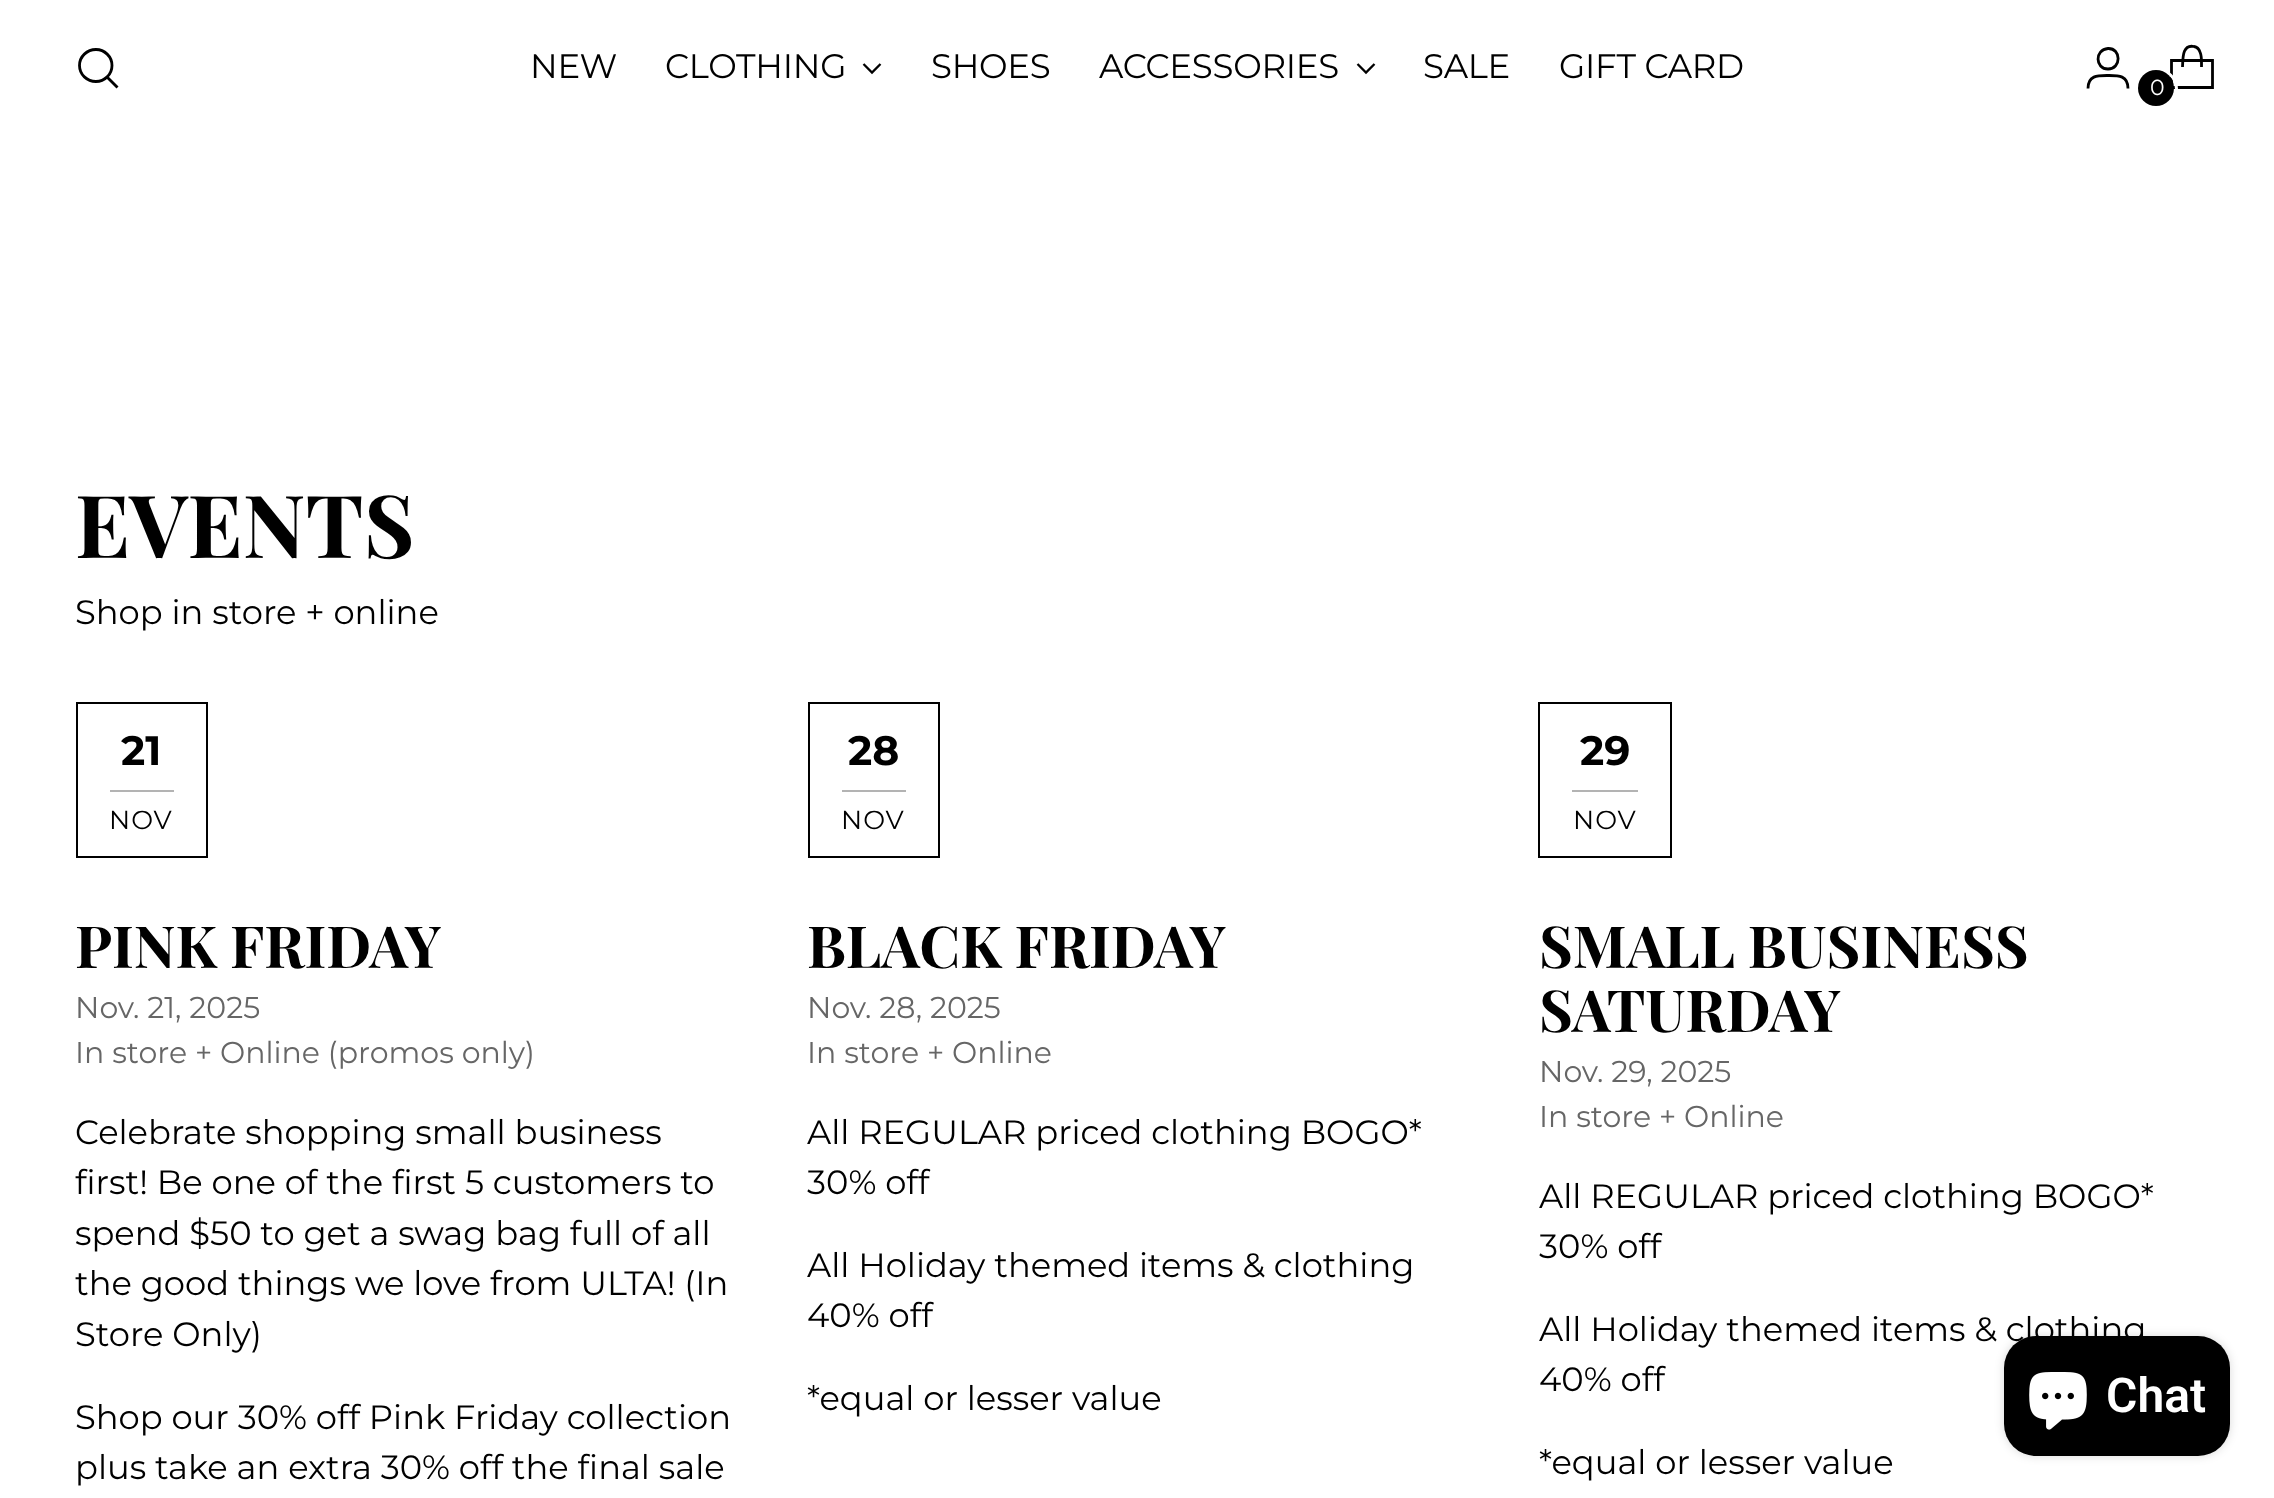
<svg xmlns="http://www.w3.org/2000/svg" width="2274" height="1498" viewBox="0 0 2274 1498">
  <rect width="100%" height="100%" fill="rgb(255,255,255)"/>
  <path d="M96 81.5C104.5 81.5 112 74.5 112 65.5C112 56.5 104.5 49.5 96 49.5C87 49.5 79.5 56.5 79.5 65.5C79.5 74.5 87 81.5 96 81.5Z" fill="none" stroke="rgb(0,0,0)" stroke-width="2.8" stroke-linecap="round"/>
  <path d="M107.5 77.5L117.5 87.5" fill="none" stroke="rgb(0,0,0)" stroke-width="2.8"/>
  <g font-family="Montserrat" font-size="34" letter-spacing="-0.25" fill="rgb(0,0,0)">
    <text x="530" y="78">NEW</text>
    <text x="665" y="78">CLOTHING</text>
  </g>
  <path d="M863.5 64L872 72.5L880.5 64" fill="none" stroke="rgb(0,0,0)" stroke-width="2.3"/>
  <g font-family="Montserrat" font-size="34" letter-spacing="-0.25" fill="rgb(0,0,0)">
    <text x="931" y="78">SHOES</text>
    <text x="1099" y="78">ACCESSORIES</text>
  </g>
  <path d="M1357.5 64L1366 72.5L1374.5 64" fill="none" stroke="rgb(0,0,0)" stroke-width="2.3"/>
  <g font-family="Montserrat" font-size="34" letter-spacing="-0.25" fill="rgb(0,0,0)">
    <text x="1423" y="78">SALE</text>
    <text x="1559" y="78">GIFT CARD</text>
  </g>
  <path d="M2108 69C2121.5 69 2121.5 48 2108 48.5C2094.5 49.5 2095 69 2108 69ZM2088 88.5C2088 75 2098 75.5 2108 75.5C2118 75.5 2128 75 2128 88.5" fill="none" stroke="rgb(0,0,0)" stroke-width="2.8"/>
  <path d="M2201.5 67C2201.5 62 2202 56.5 2200 52C2199 49 2197 47 2194 46.5C2182 44 2183 59 2182.5 67" fill="none" stroke="rgb(0,0,0)" stroke-width="2.8" stroke-linejoin="bevel"/>
  <path d="M2212.5 87.5V60.5H2171.5V87.5Z" fill="none" stroke="rgb(0,0,0)" stroke-width="2.8"/>
  <circle cx="2157" cy="89" r="19.5" fill="none" stroke="rgb(255,255,255)" stroke-width="3"/>
  <circle cx="2156" cy="88" r="18" fill="rgb(0,0,0)"/>
  <text x="2150" y="95" font-family="Montserrat" font-size="22" fill="rgb(255,255,255)">0</text>
  <text x="75" y="558" font-family="Playfair Display" font-size="87" font-weight="bold" fill="rgb(0,0,0)">EVENTS</text>
  <text x="75" y="624" font-family="Montserrat" font-size="33.75" fill="rgb(0,0,0)">Shop in store + online</text>
  <rect x="77" y="703" width="130" height="154" fill="none" stroke="rgb(0,0,0)" stroke-width="2"/>
  <text x="121" y="765" font-family="Montserrat" font-size="41" font-weight="bold" fill="rgb(0,0,0)">21</text>
  <rect x="110" y="790" width="64" height="2" fill="rgb(179,179,179)"/>
  <text x="109" y="829" font-family="Montserrat" font-size="26" letter-spacing="1" fill="rgb(0,0,0)">NOV</text>
  <text x="75" y="968" font-family="Playfair Display" font-size="58" font-weight="bold" fill="rgb(0,0,0)">PINK FRIDAY</text>
  <g font-family="Montserrat" font-size="30" fill="rgb(102,102,102)">
    <text>
      <tspan x="75" y="1018">Nov. 21, 2025</tspan>
      <tspan x="75" y="1063">In store + Online (promos only)</tspan>
    </text>
  </g>
  <g font-family="Montserrat" font-size="33.75" fill="rgb(0,0,0)">
    <text>
      <tspan x="75" y="1144">Celebrate shopping small business</tspan>
      <tspan x="75" y="1194">first! Be one of the first 5 customers to</tspan>
      <tspan x="75" y="1245">spend $50 to get a swag bag full of all</tspan>
      <tspan x="75" y="1295">the good things we love from ULTA! (In</tspan>
      <tspan x="75" y="1346">Store Only)</tspan>
    </text>
    <text>
      <tspan x="75" y="1429">Shop our 30% off Pink Friday collection</tspan>
      <tspan x="75" y="1479">plus take an extra 30% off the final sale</tspan>
    </text>
  </g>
  <rect x="809" y="703" width="130" height="154" fill="none" stroke="rgb(0,0,0)" stroke-width="2"/>
  <text x="848" y="765" font-family="Montserrat" font-size="41" font-weight="bold" fill="rgb(0,0,0)">28</text>
  <rect x="842" y="790" width="64" height="2" fill="rgb(179,179,179)"/>
  <text x="841" y="829" font-family="Montserrat" font-size="26" letter-spacing="1" fill="rgb(0,0,0)">NOV</text>
  <text x="807" y="968" font-family="Playfair Display" font-size="58" font-weight="bold" fill="rgb(0,0,0)">BLACK FRIDAY</text>
  <g font-family="Montserrat" font-size="30" fill="rgb(102,102,102)">
    <text>
      <tspan x="807" y="1018">Nov. 28, 2025</tspan>
      <tspan x="807" y="1063">In store + Online</tspan>
    </text>
  </g>
  <g font-family="Montserrat" font-size="33.75" fill="rgb(0,0,0)">
    <text>
      <tspan x="807" y="1144">All REGULAR priced clothing BOGO*</tspan>
      <tspan x="807" y="1194">30% off</tspan>
    </text>
    <text>
      <tspan x="807" y="1277">All Holiday themed items &amp; clothing</tspan>
      <tspan x="807" y="1327">40% off</tspan>
    </text>
    <text x="807" y="1410">*equal or lesser value</text>
  </g>
  <rect x="1539" y="703" width="132" height="154" fill="none" stroke="rgb(0,0,0)" stroke-width="2"/>
  <text x="1580" y="765" font-family="Montserrat" font-size="41" font-weight="bold" fill="rgb(0,0,0)">29</text>
  <rect x="1572" y="790" width="66" height="2" fill="rgb(179,179,179)"/>
  <text x="1573" y="829" font-family="Montserrat" font-size="26" letter-spacing="1" fill="rgb(0,0,0)">NOV</text>
  <g font-family="Playfair Display" font-size="58" font-weight="bold" fill="rgb(0,0,0)">
    <text>
      <tspan x="1539" y="968">SMALL BUSINESS</tspan>
      <tspan x="1539" y="1032">SATURDAY</tspan>
    </text>
  </g>
  <g font-family="Montserrat" font-size="30" fill="rgb(102,102,102)">
    <text>
      <tspan x="1539" y="1082">Nov. 29, 2025</tspan>
      <tspan x="1539" y="1127">In store + Online</tspan>
    </text>
  </g>
  <g font-family="Montserrat" font-size="33.75" fill="rgb(0,0,0)">
    <text>
      <tspan x="1539" y="1208">All REGULAR priced clothing BOGO*</tspan>
      <tspan x="1539" y="1258">30% off</tspan>
    </text>
    <text>
      <tspan x="1539" y="1341">All Holiday themed items &amp; clothing</tspan>
      <tspan x="1539" y="1391">40% off</tspan>
    </text>
    <text x="1539" y="1474">*equal or lesser value</text>
  </g>
  <rect x="2004" y="1336" width="226" height="120" rx="32" fill="rgba(0,0,0,0.15)" filter="blur(5px)"/>
  <rect x="2004" y="1336" width="226" height="120" rx="32" fill="rgb(0,0,0)"/>
  <image x="2029" y="1372" width="58" height="58" href="pic1.png"/>
  <text x="2106" y="1412" font-family="Roboto" font-size="48" font-weight="600" fill="rgb(255,255,255)">Chat</text>
</svg>
